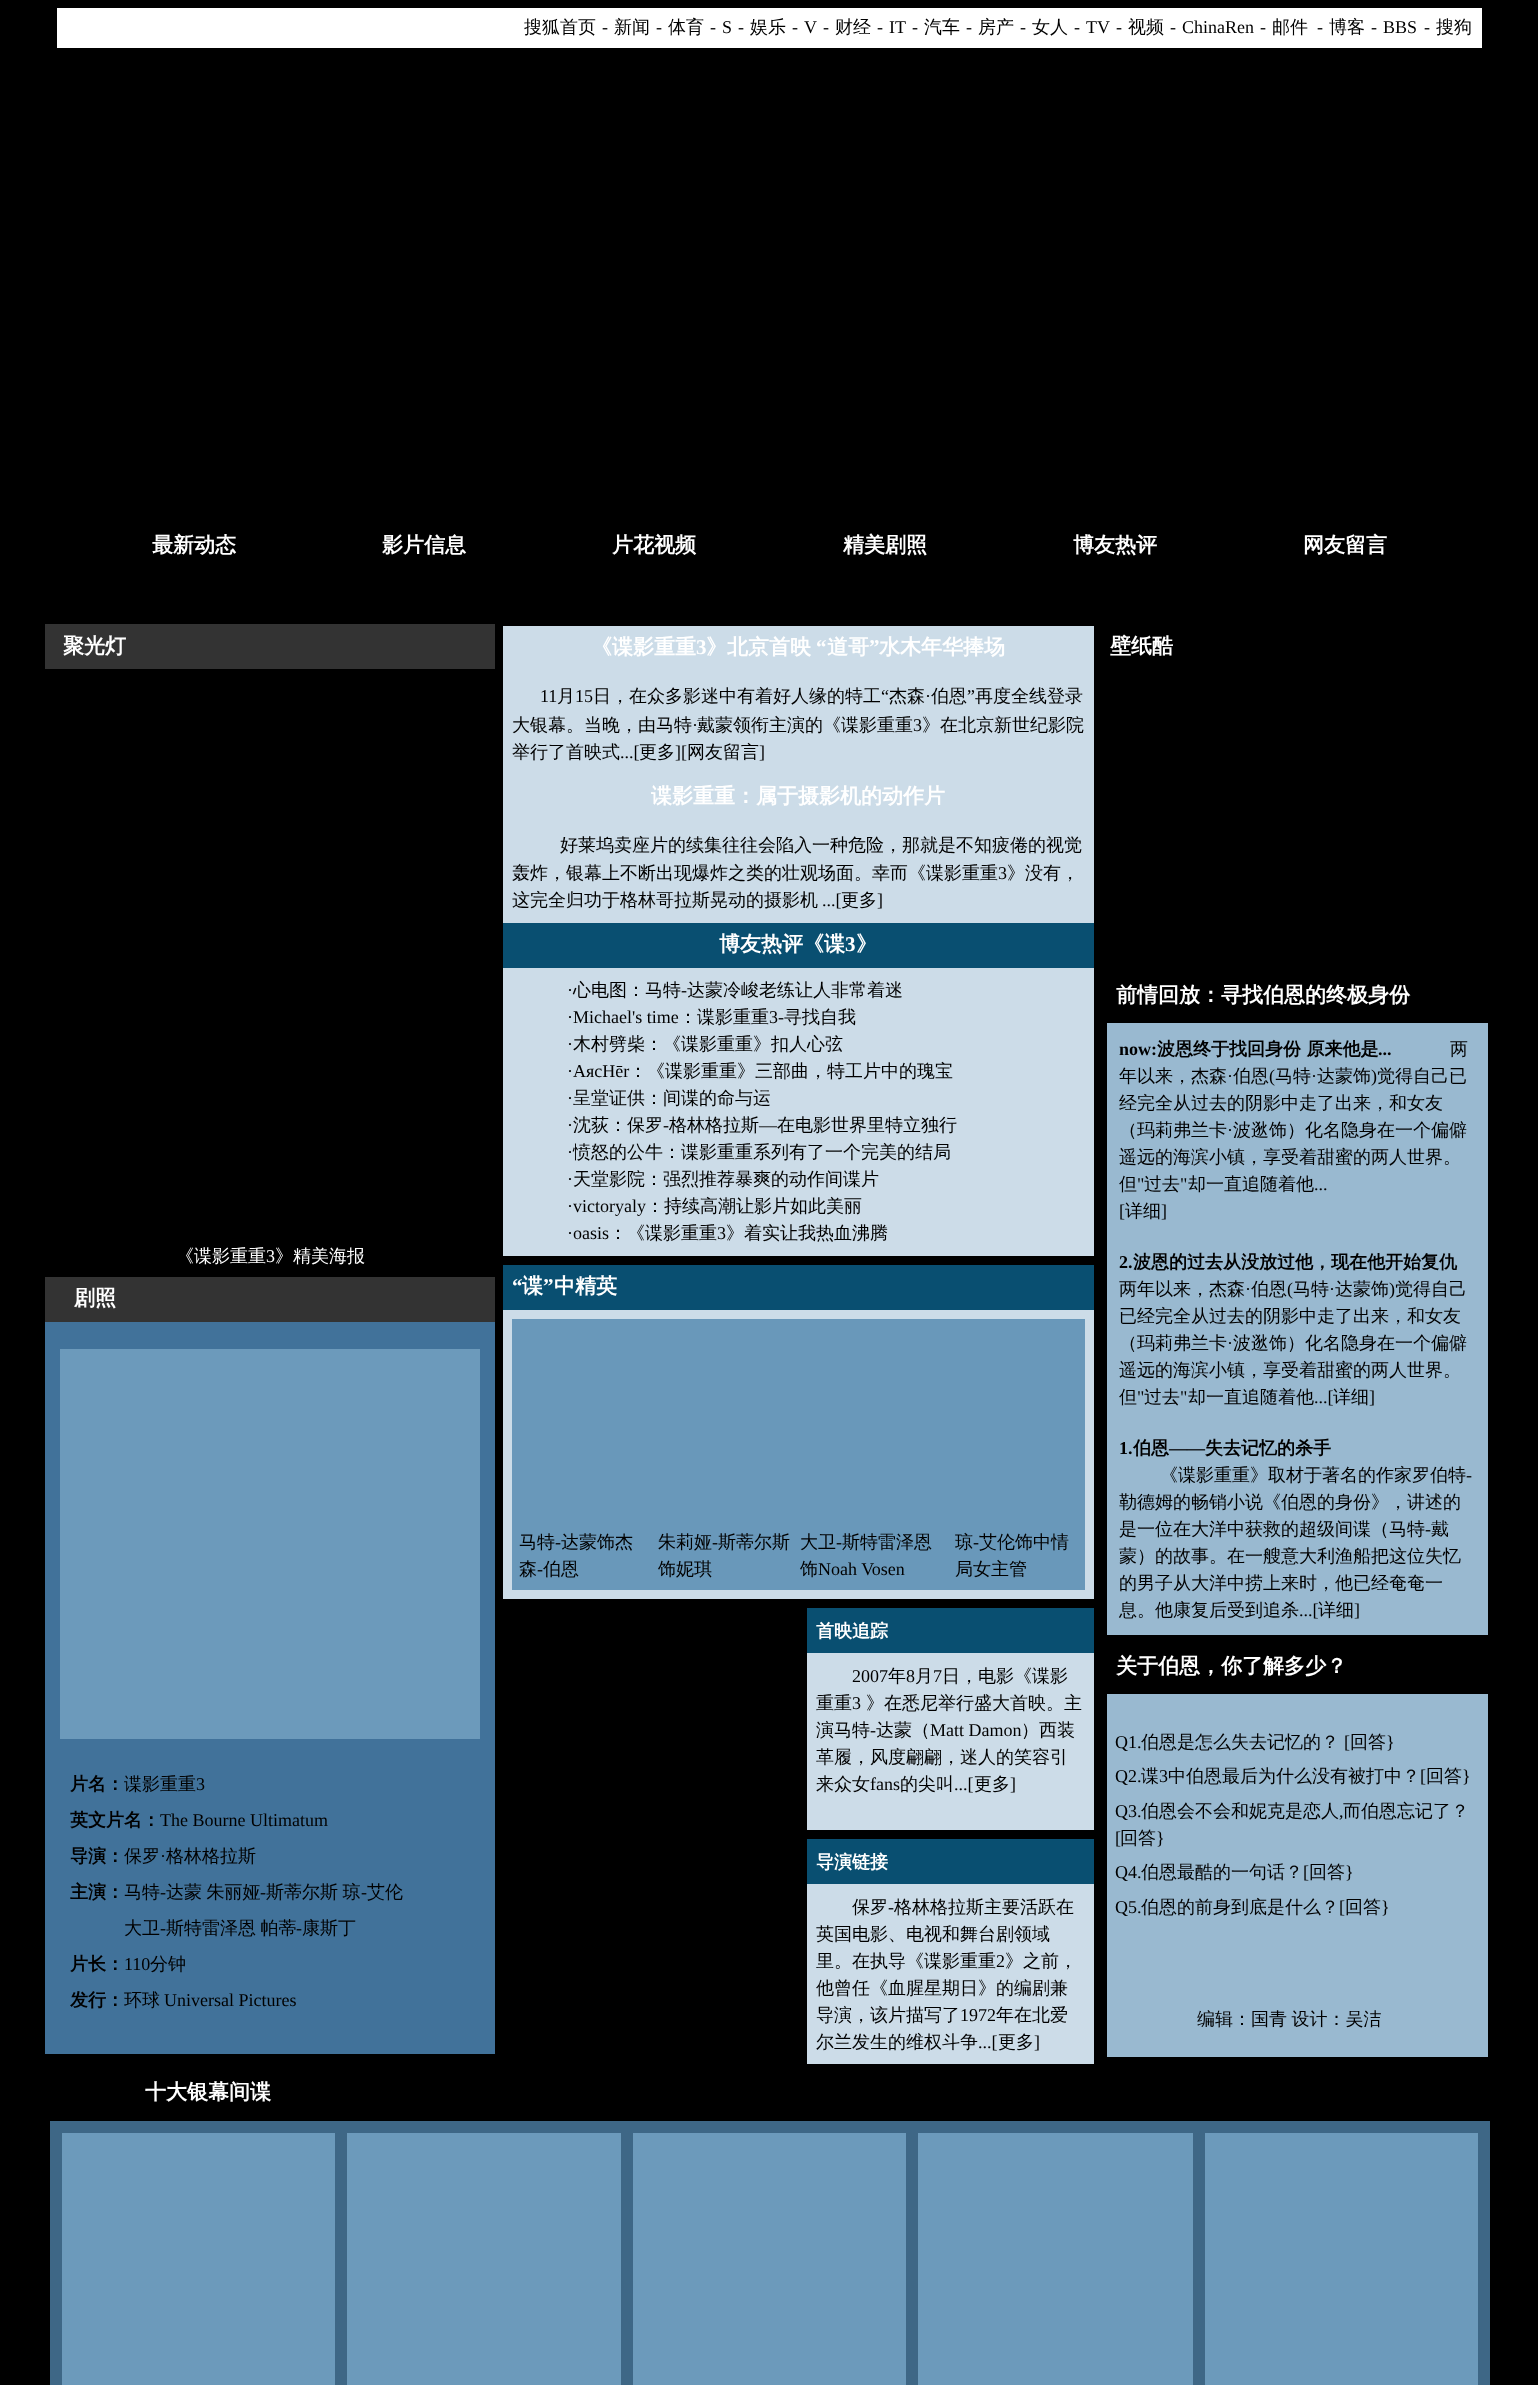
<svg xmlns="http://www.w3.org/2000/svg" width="1538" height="2385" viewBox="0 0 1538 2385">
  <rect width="100%" height="100%" fill="rgb(0,0,0)"/>
  <rect x="57" y="8" width="1425" height="40" fill="rgb(255,255,255)"/>
  <text x="524" y="33" font-family="WenQuanYi Zen Hei" font-size="18" font-weight="500" fill="rgb(0,0,0)">搜狐首页</text>
  <text x="602" y="33" font-family="Liberation Serif" font-size="18" fill="rgb(0,0,0)">-</text>
  <text x="614" y="33" font-family="WenQuanYi Zen Hei" font-size="18" font-weight="500" fill="rgb(0,0,0)">新闻</text>
  <text x="656" y="33" font-family="Liberation Serif" font-size="18" fill="rgb(0,0,0)">-</text>
  <text x="668" y="33" font-family="WenQuanYi Zen Hei" font-size="18" font-weight="500" fill="rgb(0,0,0)">体育</text>
  <g font-family="Liberation Serif" font-size="18" fill="rgb(0,0,0)">
    <text x="710" y="33">-</text>
    <text x="722" y="33">S</text>
    <text x="738" y="33">-</text>
  </g>
  <text x="750" y="33" font-family="WenQuanYi Zen Hei" font-size="18" font-weight="500" fill="rgb(0,0,0)">娱乐</text>
  <g font-family="Liberation Serif" font-size="18" fill="rgb(0,0,0)">
    <text x="792" y="33">-</text>
    <text x="804" y="33">V</text>
    <text x="823" y="33">-</text>
  </g>
  <text x="835" y="33" font-family="WenQuanYi Zen Hei" font-size="18" font-weight="500" fill="rgb(0,0,0)">财经</text>
  <g font-family="Liberation Serif" font-size="18" fill="rgb(0,0,0)">
    <text x="877" y="33">-</text>
    <text x="889" y="33">IT</text>
    <text x="912" y="33">-</text>
  </g>
  <text x="924" y="33" font-family="WenQuanYi Zen Hei" font-size="18" font-weight="500" fill="rgb(0,0,0)">汽车</text>
  <text x="966" y="33" font-family="Liberation Serif" font-size="18" fill="rgb(0,0,0)">-</text>
  <text x="978" y="33" font-family="WenQuanYi Zen Hei" font-size="18" font-weight="500" fill="rgb(0,0,0)">房产</text>
  <text x="1020" y="33" font-family="Liberation Serif" font-size="18" fill="rgb(0,0,0)">-</text>
  <text x="1032" y="33" font-family="WenQuanYi Zen Hei" font-size="18" font-weight="500" fill="rgb(0,0,0)">女人</text>
  <g font-family="Liberation Serif" font-size="18" fill="rgb(0,0,0)">
    <text x="1074" y="33">-</text>
    <text x="1086" y="33">TV</text>
    <text x="1116" y="33">-</text>
  </g>
  <text x="1128" y="33" font-family="WenQuanYi Zen Hei" font-size="18" font-weight="500" fill="rgb(0,0,0)">视频</text>
  <g font-family="Liberation Serif" font-size="18" fill="rgb(0,0,0)">
    <text x="1170" y="33">-</text>
    <text x="1182" y="33">ChinaRen</text>
    <text x="1260" y="33">-</text>
  </g>
  <text x="1272" y="33" font-family="WenQuanYi Zen Hei" font-size="18" font-weight="500" fill="rgb(0,0,0)">邮件</text>
  <text x="1317" y="33" font-family="Liberation Serif" font-size="18" fill="rgb(0,0,0)">-</text>
  <text x="1329" y="33" font-family="WenQuanYi Zen Hei" font-size="18" font-weight="500" fill="rgb(0,0,0)">博客</text>
  <g font-family="Liberation Serif" font-size="18" fill="rgb(0,0,0)">
    <text x="1371" y="33">-</text>
    <text x="1383" y="33">BBS</text>
    <text x="1424" y="33">-</text>
  </g>
  <text x="1436" y="33" font-family="WenQuanYi Zen Hei" font-size="18" font-weight="500" fill="rgb(0,0,0)">搜狗</text>
  <g font-family="WenQuanYi Zen Hei" font-size="21" font-weight="bold" fill="rgb(255,255,255)">
    <text x="152" y="552">最新动态</text>
    <text x="382" y="552">影片信息</text>
    <text x="612" y="552">片花视频</text>
    <text x="843" y="552">精美剧照</text>
    <text x="1073" y="552">博友热评</text>
    <text x="1303" y="552">网友留言</text>
  </g>
  <rect x="45" y="624" width="450" height="45" fill="rgb(51,51,51)"/>
  <text x="63" y="653" font-family="WenQuanYi Zen Hei" font-size="21" font-weight="bold" fill="rgb(255,255,255)">聚光灯</text>
  <text x="176" y="1262" font-family="WenQuanYi Zen Hei" font-size="18" font-weight="500" fill="rgb(255,255,255)">《谍影重重</text>
  <text x="266" y="1262" font-family="Liberation Serif" font-size="18" fill="rgb(255,255,255)">3</text>
  <text x="275" y="1262" font-family="WenQuanYi Zen Hei" font-size="18" font-weight="500" fill="rgb(255,255,255)">》精美海报</text>
  <rect x="45" y="1322" width="450" height="732" fill="rgb(65,114,154)"/>
  <rect x="45" y="1277" width="450" height="45" fill="rgb(51,51,51)"/>
  <text x="74" y="1305" font-family="WenQuanYi Zen Hei" font-size="21" font-weight="bold" fill="rgb(255,255,255)">剧照</text>
  <rect x="60" y="1349" width="420" height="390" fill="rgb(108,154,187)"/>
  <text x="70" y="1790" font-family="WenQuanYi Zen Hei" font-size="18" font-weight="bold" fill="rgb(0,0,0)">片名：</text>
  <text x="124" y="1790" font-family="WenQuanYi Zen Hei" font-size="18" font-weight="500" fill="rgb(0,0,0)">谍影重重</text>
  <text x="196" y="1790" font-family="Liberation Serif" font-size="18" fill="rgb(0,0,0)">3</text>
  <text x="70" y="1826" font-family="WenQuanYi Zen Hei" font-size="18" font-weight="bold" fill="rgb(0,0,0)">英文片名：</text>
  <text x="160" y="1826" font-family="Liberation Serif" font-size="18" fill="rgb(0,0,0)">The Bourne Ultimatum</text>
  <text x="70" y="1862" font-family="WenQuanYi Zen Hei" font-size="18" font-weight="bold" fill="rgb(0,0,0)">导演：</text>
  <text x="124" y="1862" font-family="WenQuanYi Zen Hei" font-size="18" font-weight="500" fill="rgb(0,0,0)">保罗</text>
  <text x="160" y="1862" font-family="Liberation Serif" font-size="18" fill="rgb(0,0,0)">·</text>
  <text x="166" y="1862" font-family="WenQuanYi Zen Hei" font-size="18" font-weight="500" fill="rgb(0,0,0)">格林格拉斯</text>
  <text x="70" y="1898" font-family="WenQuanYi Zen Hei" font-size="18" font-weight="bold" fill="rgb(0,0,0)">主演：</text>
  <text x="124" y="1898" font-family="WenQuanYi Zen Hei" font-size="18" font-weight="500" fill="rgb(0,0,0)">马特</text>
  <text x="160" y="1898" font-family="Liberation Serif" font-size="18" fill="rgb(0,0,0)">-</text>
  <text x="166" y="1898" word-spacing="-1" font-family="WenQuanYi Zen Hei" font-size="18" font-weight="500" fill="rgb(0,0,0)">达蒙 朱丽娅</text>
  <text x="260" y="1898" font-family="Liberation Serif" font-size="18" fill="rgb(0,0,0)">-</text>
  <text x="266" y="1898" word-spacing="-1" font-family="WenQuanYi Zen Hei" font-size="18" font-weight="500" fill="rgb(0,0,0)">斯蒂尔斯 琼</text>
  <text x="361" y="1898" font-family="Liberation Serif" font-size="18" fill="rgb(0,0,0)">-</text>
  <g font-family="WenQuanYi Zen Hei" font-size="18" font-weight="500" fill="rgb(0,0,0)">
    <text x="367" y="1898">艾伦</text>
    <text x="124" y="1934">大卫</text>
  </g>
  <text x="160" y="1934" font-family="Liberation Serif" font-size="18" fill="rgb(0,0,0)">-</text>
  <text x="166" y="1934" word-spacing="-1" font-family="WenQuanYi Zen Hei" font-size="18" font-weight="500" fill="rgb(0,0,0)">斯特雷泽恩 帕蒂</text>
  <text x="296" y="1934" font-family="Liberation Serif" font-size="18" fill="rgb(0,0,0)">-</text>
  <text x="302" y="1934" font-family="WenQuanYi Zen Hei" font-size="18" font-weight="500" fill="rgb(0,0,0)">康斯丁</text>
  <text x="70" y="1970" font-family="WenQuanYi Zen Hei" font-size="18" font-weight="bold" fill="rgb(0,0,0)">片长：</text>
  <text x="124" y="1970" font-family="Liberation Serif" font-size="18" fill="rgb(0,0,0)">110</text>
  <text x="150" y="1970" font-family="WenQuanYi Zen Hei" font-size="18" font-weight="500" fill="rgb(0,0,0)">分钟</text>
  <text x="70" y="2006" font-family="WenQuanYi Zen Hei" font-size="18" font-weight="bold" fill="rgb(0,0,0)">发行：</text>
  <text x="124" y="2006" font-family="WenQuanYi Zen Hei" font-size="18" font-weight="500" fill="rgb(0,0,0)">环球</text>
  <text x="164" y="2006" font-family="Liberation Serif" font-size="18" fill="rgb(0,0,0)">Universal Pictures</text>
  <rect x="503" y="626" width="591" height="630" fill="rgb(204,220,232)"/>
  <text x="591" y="654" font-family="WenQuanYi Zen Hei" font-size="21" font-weight="bold" fill="rgb(255,255,255)">《谍影重重</text>
  <text x="696" y="654" font-family="Liberation Serif" font-size="21" font-weight="bold" fill="rgb(255,255,255)">3</text>
  <text x="706" y="654" font-family="WenQuanYi Zen Hei" font-size="21" font-weight="bold" fill="rgb(255,255,255)">》北京首映</text>
  <text x="816" y="654" font-family="Liberation Serif" font-size="21" font-weight="bold" fill="rgb(255,255,255)">“</text>
  <text x="827" y="654" font-family="WenQuanYi Zen Hei" font-size="21" font-weight="bold" fill="rgb(255,255,255)">道哥</text>
  <text x="869" y="654" font-family="Liberation Serif" font-size="21" font-weight="bold" fill="rgb(255,255,255)">”</text>
  <text x="879" y="654" font-family="WenQuanYi Zen Hei" font-size="21" font-weight="bold" fill="rgb(255,255,255)">水木年华捧场</text>
  <text x="540" y="702" font-family="Liberation Serif" font-size="18" fill="rgb(0,0,0)">11</text>
  <text x="557" y="702" font-family="WenQuanYi Zen Hei" font-size="18" font-weight="500" fill="rgb(0,0,0)">月</text>
  <text x="575" y="702" font-family="Liberation Serif" font-size="18" fill="rgb(0,0,0)">15</text>
  <text x="593" y="702" font-family="WenQuanYi Zen Hei" font-size="18" font-weight="500" fill="rgb(0,0,0)">日，在众多影迷中有着好人缘的特工</text>
  <text x="881" y="702" font-family="Liberation Serif" font-size="18" fill="rgb(0,0,0)">“</text>
  <g font-family="WenQuanYi Zen Hei" font-size="18" font-weight="500" fill="rgb(0,0,0)">
    <text x="889" y="702">杰森</text>
    <text x="931" y="702">伯恩</text>
  </g>
  <text x="967" y="702" font-family="Liberation Serif" font-size="18" fill="rgb(0,0,0)">”</text>
  <text x="975" y="702" font-family="WenQuanYi Zen Hei" font-size="18" font-weight="500" fill="rgb(0,0,0)">再度全线登录</text>
  <text x="925" y="702" font-family="Liberation Serif" font-size="18" fill="rgb(0,0,0)">·</text>
  <text x="512" y="731" font-family="WenQuanYi Zen Hei" font-size="18" font-weight="500" fill="rgb(0,0,0)">大银幕。当晚，由马特</text>
  <text x="692" y="731" font-family="Liberation Serif" font-size="18" fill="rgb(0,0,0)">·</text>
  <text x="697" y="731" font-family="WenQuanYi Zen Hei" font-size="18" font-weight="500" fill="rgb(0,0,0)">戴蒙领衔主演的《谍影重重</text>
  <text x="913" y="731" font-family="Liberation Serif" font-size="18" fill="rgb(0,0,0)">3</text>
  <g font-family="WenQuanYi Zen Hei" font-size="18" font-weight="500" fill="rgb(0,0,0)">
    <text x="922" y="731">》在北京新世纪影院</text>
    <text x="512" y="758">举行了首映式</text>
  </g>
  <text x="620" y="758" font-family="Liberation Serif" font-size="18" fill="rgb(0,0,0)">...[</text>
  <text x="639" y="758" font-family="WenQuanYi Zen Hei" font-size="18" font-weight="500" fill="rgb(0,0,0)">更多</text>
  <text x="675" y="758" font-family="Liberation Serif" font-size="18" fill="rgb(0,0,0)">][</text>
  <text x="687" y="758" font-family="WenQuanYi Zen Hei" font-size="18" font-weight="500" fill="rgb(0,0,0)">网友留言</text>
  <text x="759" y="758" font-family="Liberation Serif" font-size="18" fill="rgb(0,0,0)">]</text>
  <text x="651" y="803" font-family="WenQuanYi Zen Hei" font-size="21" font-weight="bold" fill="rgb(255,255,255)">谍影重重：属于摄影机的动作片</text>
  <g font-family="WenQuanYi Zen Hei" font-size="18" font-weight="500" fill="rgb(0,0,0)">
    <text x="560" y="851">好莱坞卖座片的续集往往会陷入一种危险，那就是不知疲倦的视觉</text>
    <text x="512" y="879">轰炸，银幕上不断出现爆炸之类的壮观场面。幸而《谍影重重</text>
  </g>
  <text x="998" y="879" font-family="Liberation Serif" font-size="18" fill="rgb(0,0,0)">3</text>
  <g font-family="WenQuanYi Zen Hei" font-size="18" font-weight="500" fill="rgb(0,0,0)">
    <text x="1007" y="879">》没有，</text>
    <text x="512" y="906">这完全归功于格林哥拉斯晃动的摄影机</text>
  </g>
  <text x="822" y="906" font-family="Liberation Serif" font-size="18" fill="rgb(0,0,0)">...[</text>
  <text x="841" y="906" font-family="WenQuanYi Zen Hei" font-size="18" font-weight="500" fill="rgb(0,0,0)">更多</text>
  <text x="877" y="906" font-family="Liberation Serif" font-size="18" fill="rgb(0,0,0)">]</text>
  <rect x="503" y="923" width="591" height="45" fill="rgb(9,79,113)"/>
  <text x="719" y="951" font-family="WenQuanYi Zen Hei" font-size="21" font-weight="bold" fill="rgb(255,255,255)">博友热评《谍</text>
  <text x="845" y="951" font-family="Liberation Serif" font-size="21" font-weight="bold" fill="rgb(255,255,255)">3</text>
  <text x="856" y="951" font-family="WenQuanYi Zen Hei" font-size="21" font-weight="bold" fill="rgb(255,255,255)">》</text>
  <text x="567" y="996" font-family="Liberation Serif" font-size="18" fill="rgb(0,0,0)">·</text>
  <text x="573" y="996" font-family="WenQuanYi Zen Hei" font-size="18" font-weight="500" fill="rgb(0,0,0)">心电图：马特</text>
  <text x="681" y="996" font-family="Liberation Serif" font-size="18" fill="rgb(0,0,0)">-</text>
  <text x="687" y="996" font-family="WenQuanYi Zen Hei" font-size="18" font-weight="500" fill="rgb(0,0,0)">达蒙冷峻老练让人非常着迷</text>
  <text x="567" y="1023" font-family="Liberation Serif" font-size="18" fill="rgb(0,0,0)">·Michael's time</text>
  <text x="679" y="1023" font-family="WenQuanYi Zen Hei" font-size="18" font-weight="500" fill="rgb(0,0,0)">：谍影重重</text>
  <text x="769" y="1023" font-family="Liberation Serif" font-size="18" fill="rgb(0,0,0)">3-</text>
  <text x="784" y="1023" font-family="WenQuanYi Zen Hei" font-size="18" font-weight="500" fill="rgb(0,0,0)">寻找自我</text>
  <text x="567" y="1050" font-family="Liberation Serif" font-size="18" fill="rgb(0,0,0)">·</text>
  <text x="573" y="1050" font-family="WenQuanYi Zen Hei" font-size="18" font-weight="500" fill="rgb(0,0,0)">木村劈柴：《谍影重重》扣人心弦</text>
  <text x="567" y="1077" font-family="Liberation Serif" font-size="18" fill="rgb(0,0,0)">·AяcHēr</text>
  <text x="629" y="1077" font-family="WenQuanYi Zen Hei" font-size="18" font-weight="500" fill="rgb(0,0,0)">：《谍影重重》三部曲，特工片中的瑰宝</text>
  <text x="567" y="1104" font-family="Liberation Serif" font-size="18" fill="rgb(0,0,0)">·</text>
  <text x="573" y="1104" font-family="WenQuanYi Zen Hei" font-size="18" font-weight="500" fill="rgb(0,0,0)">呈堂证供：间谍的命与运</text>
  <text x="567" y="1131" font-family="Liberation Serif" font-size="18" fill="rgb(0,0,0)">·</text>
  <text x="573" y="1131" font-family="WenQuanYi Zen Hei" font-size="18" font-weight="500" fill="rgb(0,0,0)">沈荻：保罗</text>
  <text x="663" y="1131" font-family="Liberation Serif" font-size="18" fill="rgb(0,0,0)">-</text>
  <text x="669" y="1131" font-family="WenQuanYi Zen Hei" font-size="18" font-weight="500" fill="rgb(0,0,0)">格林格拉斯</text>
  <text x="759" y="1131" font-family="Liberation Serif" font-size="18" fill="rgb(0,0,0)">—</text>
  <text x="777" y="1131" font-family="WenQuanYi Zen Hei" font-size="18" font-weight="500" fill="rgb(0,0,0)">在电影世界里特立独行</text>
  <text x="567" y="1158" font-family="Liberation Serif" font-size="18" fill="rgb(0,0,0)">·</text>
  <text x="573" y="1158" font-family="WenQuanYi Zen Hei" font-size="18" font-weight="500" fill="rgb(0,0,0)">愤怒的公牛：谍影重重系列有了一个完美的结局</text>
  <text x="567" y="1185" font-family="Liberation Serif" font-size="18" fill="rgb(0,0,0)">·</text>
  <text x="573" y="1185" font-family="WenQuanYi Zen Hei" font-size="18" font-weight="500" fill="rgb(0,0,0)">天堂影院：强烈推荐暴爽的动作间谍片</text>
  <text x="567" y="1212" font-family="Liberation Serif" font-size="18" fill="rgb(0,0,0)">·victoryaly</text>
  <text x="646" y="1212" font-family="WenQuanYi Zen Hei" font-size="18" font-weight="500" fill="rgb(0,0,0)">：持续高潮让影片如此美丽</text>
  <text x="567" y="1239" font-family="Liberation Serif" font-size="18" fill="rgb(0,0,0)">·oasis</text>
  <text x="609" y="1239" font-family="WenQuanYi Zen Hei" font-size="18" font-weight="500" fill="rgb(0,0,0)">：《谍影重重</text>
  <text x="717" y="1239" font-family="Liberation Serif" font-size="18" fill="rgb(0,0,0)">3</text>
  <text x="726" y="1239" font-family="WenQuanYi Zen Hei" font-size="18" font-weight="500" fill="rgb(0,0,0)">》着实让我热血沸腾</text>
  <rect x="503" y="1310" width="591" height="289" fill="rgb(204,220,232)"/>
  <rect x="503" y="1265" width="591" height="45" fill="rgb(9,79,113)"/>
  <text x="512" y="1293" font-family="Liberation Serif" font-size="21" font-weight="bold" fill="rgb(255,255,255)">“</text>
  <text x="522" y="1293" font-family="WenQuanYi Zen Hei" font-size="21" font-weight="bold" fill="rgb(255,255,255)">谍</text>
  <text x="543" y="1293" font-family="Liberation Serif" font-size="21" font-weight="bold" fill="rgb(255,255,255)">”</text>
  <text x="554" y="1293" font-family="WenQuanYi Zen Hei" font-size="21" font-weight="bold" fill="rgb(255,255,255)">中精英</text>
  <rect x="512" y="1319" width="573" height="271" fill="rgb(105,152,186)"/>
  <text x="519" y="1548" font-family="WenQuanYi Zen Hei" font-size="18" font-weight="500" fill="rgb(0,0,0)">马特</text>
  <text x="555" y="1548" font-family="Liberation Serif" font-size="18" fill="rgb(0,0,0)">-</text>
  <g font-family="WenQuanYi Zen Hei" font-size="18" font-weight="500" fill="rgb(0,0,0)">
    <text x="561" y="1548">达蒙饰杰</text>
    <text x="519" y="1575">森</text>
  </g>
  <text x="537" y="1575" font-family="Liberation Serif" font-size="18" fill="rgb(0,0,0)">-</text>
  <g font-family="WenQuanYi Zen Hei" font-size="18" font-weight="500" fill="rgb(0,0,0)">
    <text x="543" y="1575">伯恩</text>
    <text x="658" y="1548">朱莉娅</text>
  </g>
  <text x="712" y="1548" font-family="Liberation Serif" font-size="18" fill="rgb(0,0,0)">-</text>
  <g font-family="WenQuanYi Zen Hei" font-size="18" font-weight="500" fill="rgb(0,0,0)">
    <text x="718" y="1548">斯蒂尔斯</text>
    <text x="658" y="1575">饰妮琪</text>
    <text x="800" y="1548">大卫</text>
  </g>
  <text x="836" y="1548" font-family="Liberation Serif" font-size="18" fill="rgb(0,0,0)">-</text>
  <g font-family="WenQuanYi Zen Hei" font-size="18" font-weight="500" fill="rgb(0,0,0)">
    <text x="842" y="1548">斯特雷泽恩</text>
    <text x="800" y="1575">饰</text>
  </g>
  <text x="818" y="1575" font-family="Liberation Serif" font-size="18" fill="rgb(0,0,0)">Noah Vosen</text>
  <text x="955" y="1548" font-family="WenQuanYi Zen Hei" font-size="18" font-weight="500" fill="rgb(0,0,0)">琼</text>
  <text x="973" y="1548" font-family="Liberation Serif" font-size="18" fill="rgb(0,0,0)">-</text>
  <g font-family="WenQuanYi Zen Hei" font-size="18" font-weight="500" fill="rgb(0,0,0)">
    <text x="979" y="1548">艾伦饰中情</text>
    <text x="955" y="1575">局女主管</text>
  </g>
  <rect x="807" y="1653" width="287" height="177" fill="rgb(204,220,232)"/>
  <rect x="807" y="1608" width="287" height="45" fill="rgb(9,79,113)"/>
  <text x="816" y="1637" font-family="WenQuanYi Zen Hei" font-size="18" font-weight="bold" fill="rgb(255,255,255)">首映追踪</text>
  <text x="852" y="1682" font-family="Liberation Serif" font-size="18" fill="rgb(0,0,0)">2007</text>
  <text x="888" y="1682" font-family="WenQuanYi Zen Hei" font-size="18" font-weight="500" fill="rgb(0,0,0)">年</text>
  <text x="906" y="1682" font-family="Liberation Serif" font-size="18" fill="rgb(0,0,0)">8</text>
  <text x="915" y="1682" font-family="WenQuanYi Zen Hei" font-size="18" font-weight="500" fill="rgb(0,0,0)">月</text>
  <text x="933" y="1682" font-family="Liberation Serif" font-size="18" fill="rgb(0,0,0)">7</text>
  <g font-family="WenQuanYi Zen Hei" font-size="18" font-weight="500" fill="rgb(0,0,0)">
    <text x="942" y="1682">日，电影《谍影</text>
    <text x="816" y="1709">重重</text>
  </g>
  <text x="852" y="1709" font-family="Liberation Serif" font-size="18" fill="rgb(0,0,0)">3</text>
  <g font-family="WenQuanYi Zen Hei" font-size="18" font-weight="500" fill="rgb(0,0,0)">
    <text x="866" y="1709">》在悉尼举行盛大首映。主</text>
    <text x="816" y="1736">演马特</text>
  </g>
  <text x="870" y="1736" font-family="Liberation Serif" font-size="18" fill="rgb(0,0,0)">-</text>
  <text x="876" y="1736" font-family="WenQuanYi Zen Hei" font-size="18" font-weight="500" fill="rgb(0,0,0)">达蒙（</text>
  <text x="930" y="1736" font-family="Liberation Serif" font-size="18" fill="rgb(0,0,0)">Matt Damon</text>
  <g font-family="WenQuanYi Zen Hei" font-size="18" font-weight="500" fill="rgb(0,0,0)">
    <text x="1021" y="1736">）西装</text>
    <text>
      <tspan x="816" y="1763">革履，风度翩翩，迷人的笑容引</tspan>
      <tspan x="816" y="1790">来众女</tspan>
    </text>
  </g>
  <text x="870" y="1790" font-family="Liberation Serif" font-size="18" fill="rgb(0,0,0)">fans</text>
  <text x="900" y="1790" font-family="WenQuanYi Zen Hei" font-size="18" font-weight="500" fill="rgb(0,0,0)">的尖叫</text>
  <text x="954" y="1790" font-family="Liberation Serif" font-size="18" fill="rgb(0,0,0)">...[</text>
  <text x="974" y="1790" font-family="WenQuanYi Zen Hei" font-size="18" font-weight="500" fill="rgb(0,0,0)">更多</text>
  <text x="1010" y="1790" font-family="Liberation Serif" font-size="18" fill="rgb(0,0,0)">]</text>
  <rect x="807" y="1884" width="287" height="180" fill="rgb(204,220,232)"/>
  <rect x="807" y="1839" width="287" height="45" fill="rgb(9,79,113)"/>
  <text x="816" y="1868" font-family="WenQuanYi Zen Hei" font-size="18" font-weight="bold" fill="rgb(255,255,255)">导演链接</text>
  <text x="852" y="1913" font-family="WenQuanYi Zen Hei" font-size="18" font-weight="500" fill="rgb(0,0,0)">保罗</text>
  <text x="888" y="1913" font-family="Liberation Serif" font-size="18" fill="rgb(0,0,0)">-</text>
  <g font-family="WenQuanYi Zen Hei" font-size="18" font-weight="500" fill="rgb(0,0,0)">
    <text x="894" y="1913">格林格拉斯主要活跃在</text>
    <text>
      <tspan x="816" y="1940">英国电影、电视和舞台剧领域</tspan>
      <tspan x="816" y="1967">里。在执导《谍影重重</tspan>
    </text>
  </g>
  <text x="996" y="1967" font-family="Liberation Serif" font-size="18" fill="rgb(0,0,0)">2</text>
  <g font-family="WenQuanYi Zen Hei" font-size="18" font-weight="500" fill="rgb(0,0,0)">
    <text x="1005" y="1967">》之前，</text>
    <text>
      <tspan x="816" y="1994">他曾任《血腥星期日》的编剧兼</tspan>
      <tspan x="816" y="2021">导演，该片描写了</tspan>
    </text>
  </g>
  <text x="960" y="2021" font-family="Liberation Serif" font-size="18" fill="rgb(0,0,0)">1972</text>
  <g font-family="WenQuanYi Zen Hei" font-size="18" font-weight="500" fill="rgb(0,0,0)">
    <text x="996" y="2021">年在北爱</text>
    <text x="816" y="2048">尔兰发生的维权斗争</text>
  </g>
  <text x="978" y="2048" font-family="Liberation Serif" font-size="18" fill="rgb(0,0,0)">...[</text>
  <text x="998" y="2048" font-family="WenQuanYi Zen Hei" font-size="18" font-weight="500" fill="rgb(0,0,0)">更多</text>
  <text x="1034" y="2048" font-family="Liberation Serif" font-size="18" fill="rgb(0,0,0)">]</text>
  <g font-family="WenQuanYi Zen Hei" font-size="21" font-weight="bold" fill="rgb(255,255,255)">
    <text x="1110" y="653">壁纸酷</text>
    <text x="1116" y="1002">前情回放：寻找伯恩的终极身份</text>
  </g>
  <rect x="1107" y="1023" width="381" height="612" fill="rgb(153,185,208)"/>
  <text x="1119" y="1055" font-family="Liberation Serif" font-size="18" font-weight="bold" fill="rgb(0,0,0)">now:</text>
  <text x="1157" y="1055" font-family="WenQuanYi Zen Hei" font-size="18" font-weight="bold" fill="rgb(0,0,0)">波恩终于找回身份 原来他是</text>
  <text x="1378" y="1055" font-family="Liberation Serif" font-size="18" font-weight="bold" fill="rgb(0,0,0)">...</text>
  <g font-family="WenQuanYi Zen Hei" font-size="18" font-weight="500" fill="rgb(0,0,0)">
    <text x="1450" y="1055">两</text>
    <text x="1119" y="1082">年以来，杰森</text>
  </g>
  <text x="1227" y="1082" font-family="Liberation Serif" font-size="18" fill="rgb(0,0,0)">·</text>
  <text x="1233" y="1082" font-family="WenQuanYi Zen Hei" font-size="18" font-weight="500" fill="rgb(0,0,0)">伯恩</text>
  <text x="1269" y="1082" font-family="Liberation Serif" font-size="18" fill="rgb(0,0,0)">(</text>
  <text x="1275" y="1082" font-family="WenQuanYi Zen Hei" font-size="18" font-weight="500" fill="rgb(0,0,0)">马特</text>
  <text x="1311" y="1082" font-family="Liberation Serif" font-size="18" fill="rgb(0,0,0)">·</text>
  <text x="1317" y="1082" font-family="WenQuanYi Zen Hei" font-size="18" font-weight="500" fill="rgb(0,0,0)">达蒙饰</text>
  <text x="1371" y="1082" font-family="Liberation Serif" font-size="18" fill="rgb(0,0,0)">)</text>
  <g font-family="WenQuanYi Zen Hei" font-size="18" font-weight="500" fill="rgb(0,0,0)">
    <text x="1377" y="1082">觉得自己已</text>
    <text>
      <tspan x="1119" y="1109">经完全从过去的阴影中走了出来，和女友</tspan>
      <tspan x="1119" y="1136">（玛莉弗兰卡</tspan>
    </text>
  </g>
  <text x="1227" y="1136" font-family="Liberation Serif" font-size="18" fill="rgb(0,0,0)">·</text>
  <g font-family="WenQuanYi Zen Hei" font-size="18" font-weight="500" fill="rgb(0,0,0)">
    <text x="1233" y="1136">波逖饰）化名隐身在一个偏僻</text>
    <text>
      <tspan x="1119" y="1163">遥远的海滨小镇，享受着甜蜜的两人世界。</tspan>
      <tspan x="1119" y="1190">但</tspan>
    </text>
  </g>
  <text x="1137" y="1190" font-family="Liberation Serif" font-size="18" fill="rgb(0,0,0)">"</text>
  <text x="1144" y="1190" font-family="WenQuanYi Zen Hei" font-size="18" font-weight="500" fill="rgb(0,0,0)">过去</text>
  <text x="1180" y="1190" font-family="Liberation Serif" font-size="18" fill="rgb(0,0,0)">"</text>
  <text x="1188" y="1190" font-family="WenQuanYi Zen Hei" font-size="18" font-weight="500" fill="rgb(0,0,0)">却一直追随着他</text>
  <g font-family="Liberation Serif" font-size="18" fill="rgb(0,0,0)">
    <text x="1314" y="1190">...</text>
    <text x="1119" y="1217">[</text>
  </g>
  <text x="1125" y="1217" font-family="WenQuanYi Zen Hei" font-size="18" font-weight="500" fill="rgb(0,0,0)">详细</text>
  <text x="1161" y="1217" font-family="Liberation Serif" font-size="18" fill="rgb(0,0,0)">]</text>
  <text x="1119" y="1268" font-family="Liberation Serif" font-size="18" font-weight="bold" fill="rgb(0,0,0)">2.</text>
  <text x="1133" y="1268" font-family="WenQuanYi Zen Hei" font-size="18" font-weight="bold" fill="rgb(0,0,0)">波恩的过去从没放过他，现在他开始复仇</text>
  <text x="1119" y="1295" font-family="WenQuanYi Zen Hei" font-size="18" font-weight="500" fill="rgb(0,0,0)">两年以来，杰森</text>
  <text x="1245" y="1295" font-family="Liberation Serif" font-size="18" fill="rgb(0,0,0)">·</text>
  <text x="1251" y="1295" font-family="WenQuanYi Zen Hei" font-size="18" font-weight="500" fill="rgb(0,0,0)">伯恩</text>
  <text x="1287" y="1295" font-family="Liberation Serif" font-size="18" fill="rgb(0,0,0)">(</text>
  <text x="1293" y="1295" font-family="WenQuanYi Zen Hei" font-size="18" font-weight="500" fill="rgb(0,0,0)">马特</text>
  <text x="1329" y="1295" font-family="Liberation Serif" font-size="18" fill="rgb(0,0,0)">·</text>
  <text x="1335" y="1295" font-family="WenQuanYi Zen Hei" font-size="18" font-weight="500" fill="rgb(0,0,0)">达蒙饰</text>
  <text x="1389" y="1295" font-family="Liberation Serif" font-size="18" fill="rgb(0,0,0)">)</text>
  <g font-family="WenQuanYi Zen Hei" font-size="18" font-weight="500" fill="rgb(0,0,0)">
    <text x="1395" y="1295">觉得自己</text>
    <text>
      <tspan x="1119" y="1322">已经完全从过去的阴影中走了出来，和女友</tspan>
      <tspan x="1119" y="1349">（玛莉弗兰卡</tspan>
    </text>
  </g>
  <text x="1227" y="1349" font-family="Liberation Serif" font-size="18" fill="rgb(0,0,0)">·</text>
  <g font-family="WenQuanYi Zen Hei" font-size="18" font-weight="500" fill="rgb(0,0,0)">
    <text x="1233" y="1349">波逖饰）化名隐身在一个偏僻</text>
    <text>
      <tspan x="1119" y="1376">遥远的海滨小镇，享受着甜蜜的两人世界。</tspan>
      <tspan x="1119" y="1403">但</tspan>
    </text>
  </g>
  <text x="1137" y="1403" font-family="Liberation Serif" font-size="18" fill="rgb(0,0,0)">"</text>
  <text x="1144" y="1403" font-family="WenQuanYi Zen Hei" font-size="18" font-weight="500" fill="rgb(0,0,0)">过去</text>
  <text x="1180" y="1403" font-family="Liberation Serif" font-size="18" fill="rgb(0,0,0)">"</text>
  <text x="1188" y="1403" font-family="WenQuanYi Zen Hei" font-size="18" font-weight="500" fill="rgb(0,0,0)">却一直追随着他</text>
  <text x="1314" y="1403" font-family="Liberation Serif" font-size="18" fill="rgb(0,0,0)">...[</text>
  <text x="1333" y="1403" font-family="WenQuanYi Zen Hei" font-size="18" font-weight="500" fill="rgb(0,0,0)">详细</text>
  <text x="1369" y="1403" font-family="Liberation Serif" font-size="18" fill="rgb(0,0,0)">]</text>
  <text x="1119" y="1454" font-family="Liberation Serif" font-size="18" font-weight="bold" fill="rgb(0,0,0)">1.</text>
  <text x="1133" y="1454" font-family="WenQuanYi Zen Hei" font-size="18" font-weight="bold" fill="rgb(0,0,0)">伯恩</text>
  <text x="1169" y="1454" font-family="Liberation Serif" font-size="18" font-weight="bold" fill="rgb(0,0,0)">——</text>
  <text x="1205" y="1454" font-family="WenQuanYi Zen Hei" font-size="18" font-weight="bold" fill="rgb(0,0,0)">失去记忆的杀手</text>
  <text x="1160" y="1481" font-family="WenQuanYi Zen Hei" font-size="18" font-weight="500" fill="rgb(0,0,0)">《谍影重重》取材于著名的作家罗伯特</text>
  <text x="1466" y="1481" font-family="Liberation Serif" font-size="18" fill="rgb(0,0,0)">-</text>
  <g font-family="WenQuanYi Zen Hei" font-size="18" font-weight="500" fill="rgb(0,0,0)">
    <text>
      <tspan x="1119" y="1508">勒德姆的畅销小说《伯恩的身份》，讲述的</tspan>
      <tspan x="1119" y="1535">是一位在大洋中获救的超级间谍（马特</tspan>
    </text>
  </g>
  <text x="1425" y="1535" font-family="Liberation Serif" font-size="18" fill="rgb(0,0,0)">-</text>
  <g font-family="WenQuanYi Zen Hei" font-size="18" font-weight="500" fill="rgb(0,0,0)">
    <text x="1431" y="1535">戴</text>
    <text>
      <tspan x="1119" y="1562">蒙）的故事。在一艘意大利渔船把这位失忆</tspan>
      <tspan x="1119" y="1589">的男子从大洋中捞上来时，他已经奄奄一</tspan>
      <tspan x="1119" y="1616">息。他康复后受到追杀</tspan>
    </text>
  </g>
  <text x="1299" y="1616" font-family="Liberation Serif" font-size="18" fill="rgb(0,0,0)">...[</text>
  <text x="1318" y="1616" font-family="WenQuanYi Zen Hei" font-size="18" font-weight="500" fill="rgb(0,0,0)">详细</text>
  <text x="1354" y="1616" font-family="Liberation Serif" font-size="18" fill="rgb(0,0,0)">]</text>
  <text x="1116" y="1673" font-family="WenQuanYi Zen Hei" font-size="21" font-weight="bold" fill="rgb(255,255,255)">关于伯恩，你了解多少？</text>
  <rect x="1107" y="1694" width="381" height="363" fill="rgb(153,185,208)"/>
  <text x="1115" y="1748" font-family="Liberation Serif" font-size="18" fill="rgb(0,0,0)">Q1.</text>
  <text x="1141" y="1748" font-family="WenQuanYi Zen Hei" font-size="18" font-weight="500" fill="rgb(0,0,0)">伯恩是怎么失去记忆的？</text>
  <text x="1344" y="1748" font-family="Liberation Serif" font-size="18" fill="rgb(0,0,0)">[</text>
  <text x="1350" y="1748" font-family="WenQuanYi Zen Hei" font-size="18" font-weight="500" fill="rgb(0,0,0)">回答</text>
  <g font-family="Liberation Serif" font-size="18" fill="rgb(0,0,0)">
    <text x="1386" y="1748">}</text>
    <text x="1115" y="1782">Q2.</text>
  </g>
  <text x="1141" y="1782" font-family="WenQuanYi Zen Hei" font-size="18" font-weight="500" fill="rgb(0,0,0)">谍</text>
  <text x="1159" y="1782" font-family="Liberation Serif" font-size="18" fill="rgb(0,0,0)">3</text>
  <text x="1168" y="1782" font-family="WenQuanYi Zen Hei" font-size="18" font-weight="500" fill="rgb(0,0,0)">中伯恩最后为什么没有被打中？</text>
  <text x="1420" y="1782" font-family="Liberation Serif" font-size="18" fill="rgb(0,0,0)">[</text>
  <text x="1426" y="1782" font-family="WenQuanYi Zen Hei" font-size="18" font-weight="500" fill="rgb(0,0,0)">回答</text>
  <g font-family="Liberation Serif" font-size="18" fill="rgb(0,0,0)">
    <text x="1462" y="1782">}</text>
    <text x="1115" y="1817">Q3.</text>
  </g>
  <text x="1141" y="1817" font-family="WenQuanYi Zen Hei" font-size="18" font-weight="500" fill="rgb(0,0,0)">伯恩会不会和妮克是恋人</text>
  <text x="1339" y="1817" font-family="Liberation Serif" font-size="18" fill="rgb(0,0,0)">,</text>
  <text x="1343" y="1817" font-family="WenQuanYi Zen Hei" font-size="18" font-weight="500" fill="rgb(0,0,0)">而伯恩忘记了？</text>
  <text x="1115" y="1844" font-family="Liberation Serif" font-size="18" fill="rgb(0,0,0)">[</text>
  <text x="1120" y="1844" font-family="WenQuanYi Zen Hei" font-size="18" font-weight="500" fill="rgb(0,0,0)">回答</text>
  <g font-family="Liberation Serif" font-size="18" fill="rgb(0,0,0)">
    <text x="1156" y="1844">}</text>
    <text x="1115" y="1878">Q4.</text>
  </g>
  <text x="1141" y="1878" font-family="WenQuanYi Zen Hei" font-size="18" font-weight="500" fill="rgb(0,0,0)">伯恩最酷的一句话？</text>
  <text x="1303" y="1878" font-family="Liberation Serif" font-size="18" fill="rgb(0,0,0)">[</text>
  <text x="1309" y="1878" font-family="WenQuanYi Zen Hei" font-size="18" font-weight="500" fill="rgb(0,0,0)">回答</text>
  <g font-family="Liberation Serif" font-size="18" fill="rgb(0,0,0)">
    <text x="1345" y="1878">}</text>
    <text x="1115" y="1913">Q5.</text>
  </g>
  <text x="1141" y="1913" font-family="WenQuanYi Zen Hei" font-size="18" font-weight="500" fill="rgb(0,0,0)">伯恩的前身到底是什么？</text>
  <text x="1339" y="1913" font-family="Liberation Serif" font-size="18" fill="rgb(0,0,0)">[</text>
  <text x="1345" y="1913" font-family="WenQuanYi Zen Hei" font-size="18" font-weight="500" fill="rgb(0,0,0)">回答</text>
  <text x="1381" y="1913" font-family="Liberation Serif" font-size="18" fill="rgb(0,0,0)">}</text>
  <text x="1197" y="2025" word-spacing="-1" font-family="WenQuanYi Zen Hei" font-size="18" font-weight="500" fill="rgb(0,0,0)">编辑：国青 设计：吴洁</text>
  <text x="145" y="2099" font-family="WenQuanYi Zen Hei" font-size="21" font-weight="bold" fill="rgb(255,255,255)">十大银幕间谍</text>
  <rect x="50" y="2121" width="1440" height="264" fill="rgb(62,103,134)"/>
  <rect x="62" y="2133" width="273" height="252" fill="rgb(108,154,187)"/>
  <rect x="347" y="2133" width="274" height="252" fill="rgb(108,154,187)"/>
  <rect x="633" y="2133" width="273" height="252" fill="rgb(108,154,187)"/>
  <rect x="918" y="2133" width="275" height="252" fill="rgb(108,154,187)"/>
  <rect x="1205" y="2133" width="273" height="252" fill="rgb(108,154,187)"/>
</svg>
